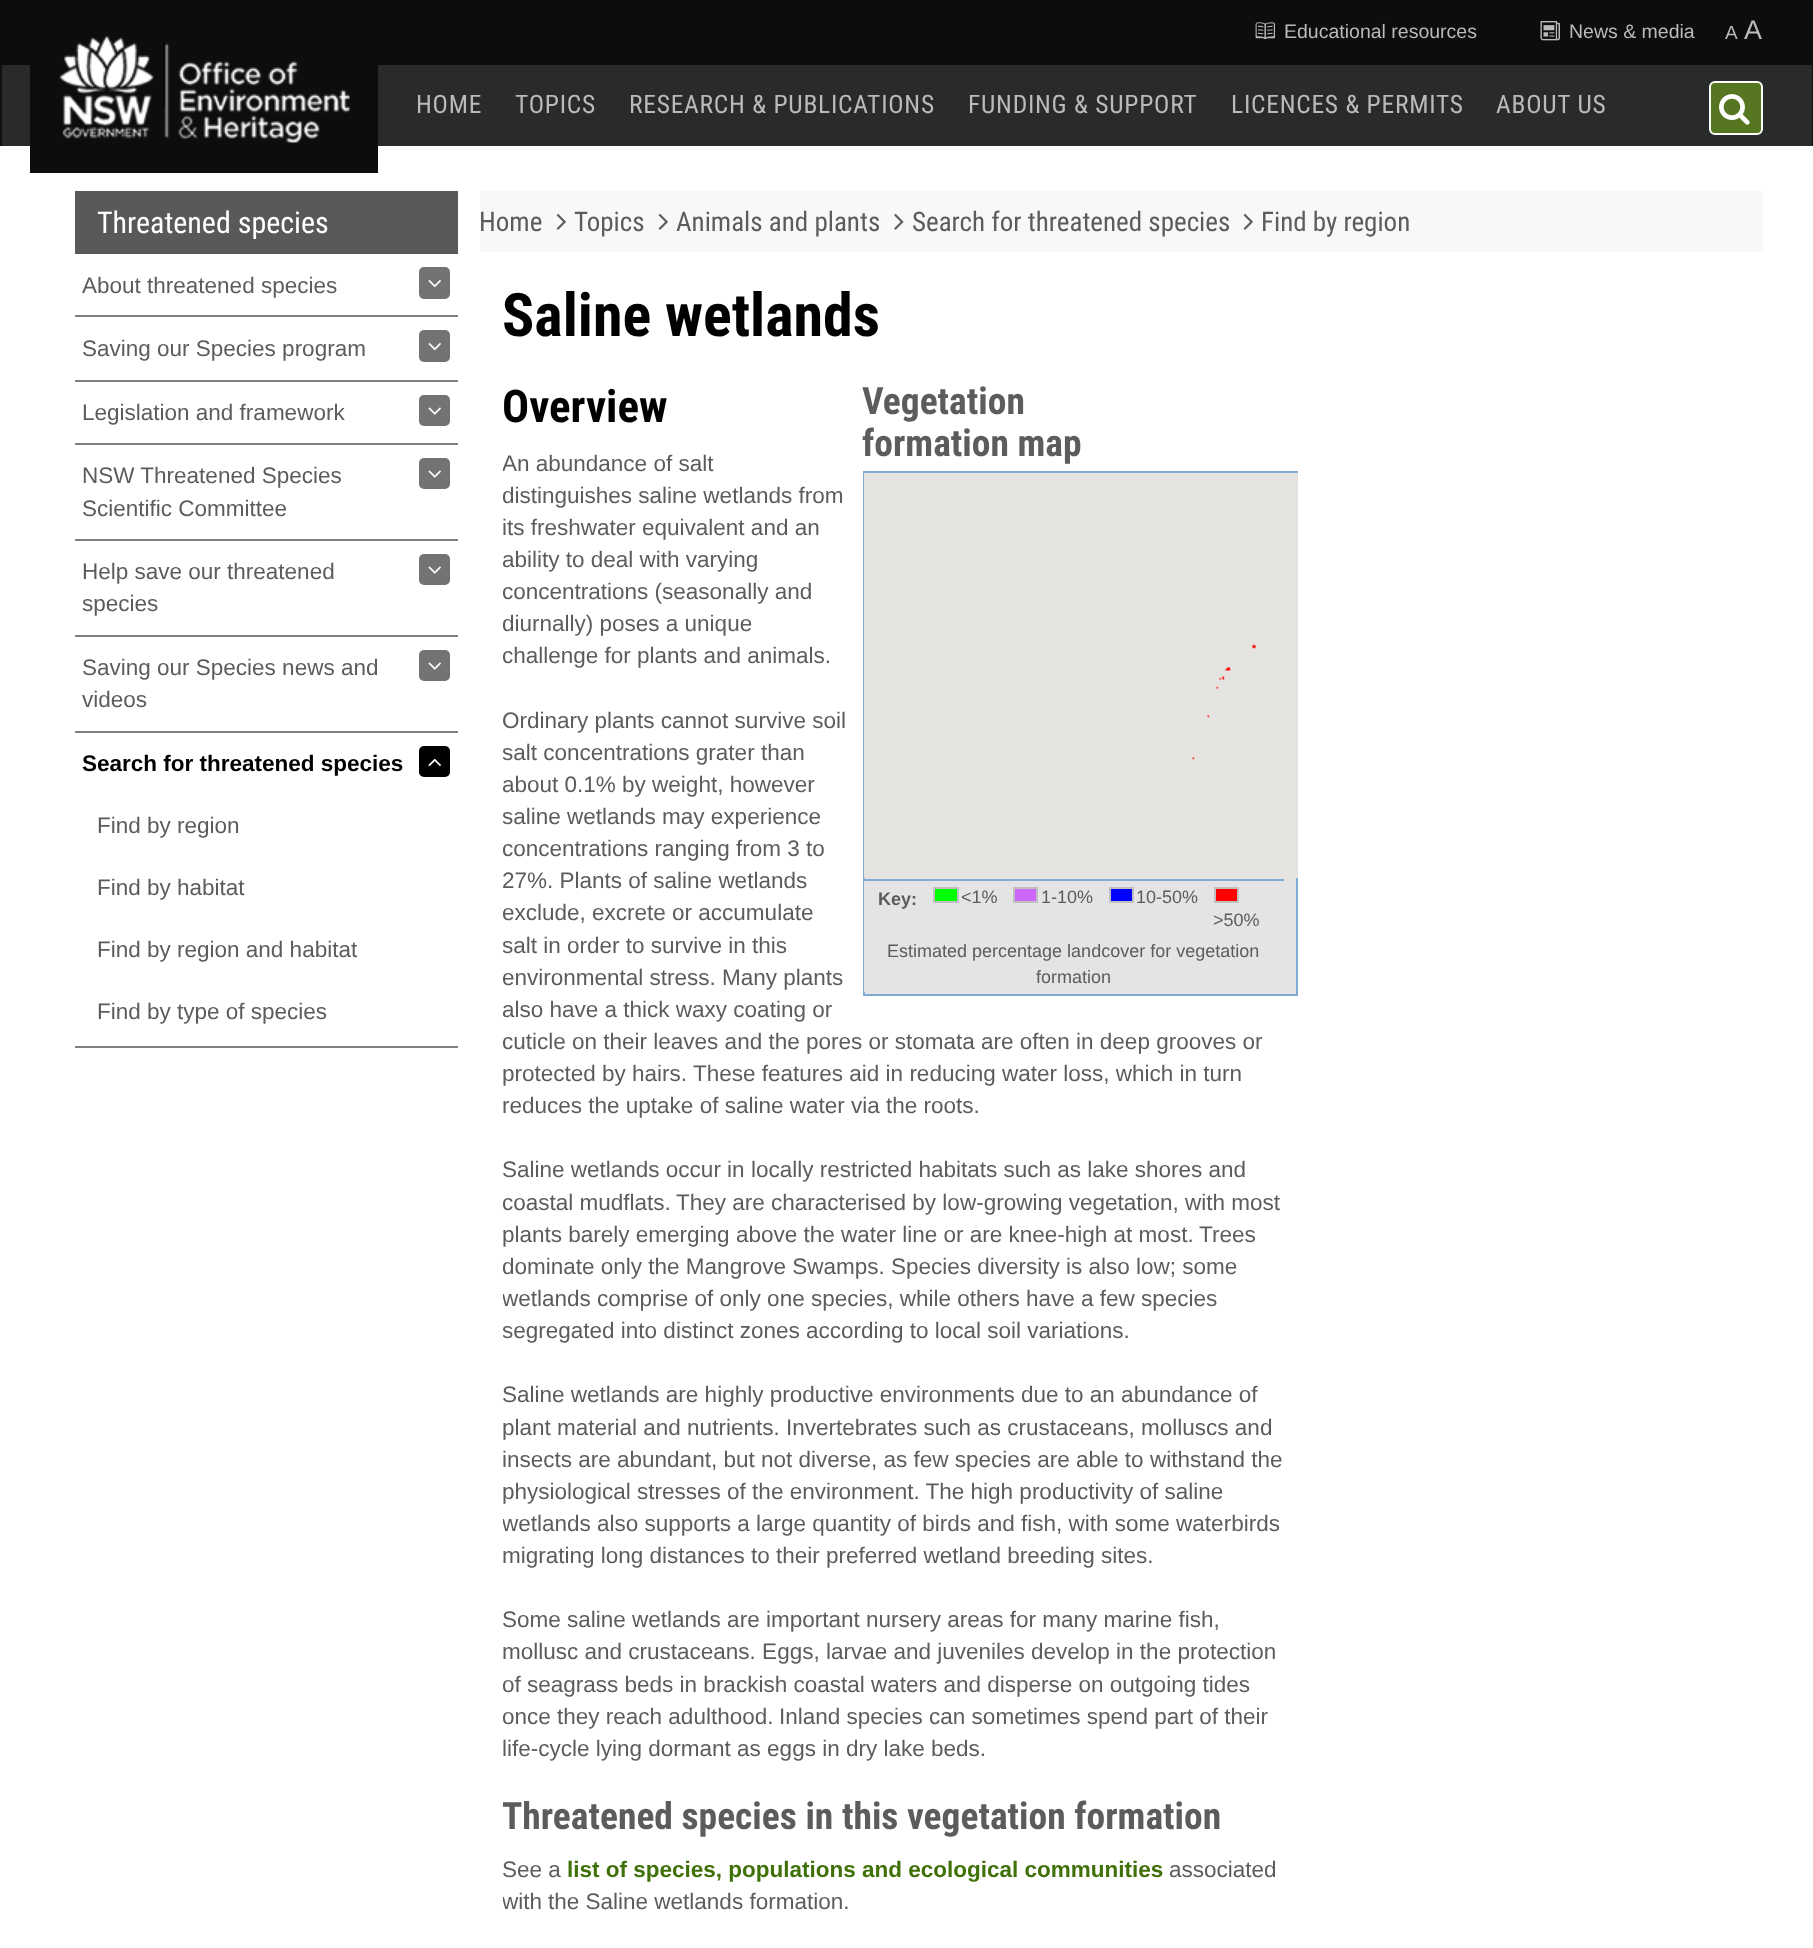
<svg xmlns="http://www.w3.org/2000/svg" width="1813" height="1948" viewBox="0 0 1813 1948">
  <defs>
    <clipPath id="clip1"><rect x="503" y="252" width="795" height="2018"/></clipPath>
  </defs>
  <rect width="100%" height="100%" fill="rgb(255,255,255)"/>
  <rect x="0" y="0" width="1813" height="65" fill="rgb(13,13,13)"/>
  <image x="1255" y="22" width="20" height="18" href="pic1.png"/>
  <text x="1284" y="38" font-family="Liberation Sans" font-size="19.5" fill="rgb(186,186,186)">Educational resources</text>
  <image x="1540" y="21" width="20" height="20" href="pic2.png"/>
  <text x="1569" y="38" font-family="Liberation Sans" font-size="19.5" fill="rgb(186,186,186)">News &amp; media</text>
  <text x="1725" y="39" font-family="Liberation Sans" font-size="19" fill="rgb(186,186,186)">A</text>
  <text x="1744" y="39" font-family="Liberation Sans" font-size="27" fill="rgb(186,186,186)">A</text>
  <rect x="2" y="65" width="1810" height="81" fill="rgb(41,42,42)"/>
  <rect x="1812" y="65" width="1" height="81" fill="rgb(16,16,16)"/>
  <rect x="0" y="65" width="2" height="81" fill="rgb(16,16,16)"/>
  <rect x="30" y="65" width="348" height="108" fill="rgb(13,13,13)"/>
  <image x="59" y="35" width="291" height="108" href="pic3.png"/>
  <g font-family="Roboto Condensed" font-size="25.5" letter-spacing="0.75" fill="rgb(186,186,186)">
    <text x="416" y="113">HOME</text>
    <text x="515" y="113">TOPICS</text>
    <text x="629" y="113">RESEARCH &amp; PUBLICATIONS</text>
    <text x="968" y="113">FUNDING &amp; SUPPORT</text>
    <text x="1231" y="113">LICENCES &amp; PERMITS</text>
    <text x="1496" y="113">ABOUT US</text>
  </g>
  <rect x="1710" y="82" width="52" height="52" rx="5" fill="rgb(86,118,33)" stroke="rgb(255,255,255)" stroke-width="2"/>
  <image x="1719" y="94" width="31" height="31" href="pic4.png"/>
  <rect x="75" y="191" width="383" height="63" fill="rgb(89,89,89)"/>
  <text x="97" y="233" font-family="Roboto Condensed" font-size="30" fill="rgb(255,255,255)">Threatened species</text>
  <rect x="75" y="315" width="383" height="2" fill="rgb(127,127,127)"/>
  <text x="82" y="293" font-family="Liberation Sans" font-size="22.5" fill="rgb(92,92,92)">About threatened species</text>
  <rect x="419" y="267" width="31" height="32" rx="5" fill="rgb(115,115,115)"/>
  <image x="428" y="280" width="13" height="8" href="pic5.png"/>
  <rect x="75" y="380" width="383" height="2" fill="rgb(127,127,127)"/>
  <text x="82" y="356" font-family="Liberation Sans" font-size="22.5" fill="rgb(92,92,92)">Saving our Species program</text>
  <rect x="419" y="330" width="31" height="32" rx="5" fill="rgb(115,115,115)"/>
  <image x="428" y="343" width="13" height="8" href="pic5.png"/>
  <rect x="75" y="443" width="383" height="2" fill="rgb(127,127,127)"/>
  <text x="82" y="420" font-family="Liberation Sans" font-size="22.5" fill="rgb(92,92,92)">Legislation and framework</text>
  <rect x="419" y="395" width="31" height="31" rx="5" fill="rgb(115,115,115)"/>
  <image x="428" y="407" width="13" height="8" href="pic6.png"/>
  <rect x="75" y="539" width="383" height="2" fill="rgb(127,127,127)"/>
  <g font-family="Liberation Sans" font-size="22.5" fill="rgb(92,92,92)">
    <text>
      <tspan x="82" y="483">NSW Threatened Species</tspan>
      <tspan x="82" y="516">Scientific Committee</tspan>
    </text>
  </g>
  <rect x="419" y="458" width="31" height="31" rx="5" fill="rgb(115,115,115)"/>
  <image x="428" y="470" width="13" height="8" href="pic6.png"/>
  <rect x="75" y="635" width="383" height="2" fill="rgb(127,127,127)"/>
  <g font-family="Liberation Sans" font-size="22.5" fill="rgb(92,92,92)">
    <text>
      <tspan x="82" y="579">Help save our threatened</tspan>
      <tspan x="82" y="611">species</tspan>
    </text>
  </g>
  <rect x="419" y="554" width="31" height="31" rx="5" fill="rgb(115,115,115)"/>
  <image x="428" y="566" width="13" height="8" href="pic6.png"/>
  <rect x="75" y="731" width="383" height="2" fill="rgb(127,127,127)"/>
  <g font-family="Liberation Sans" font-size="22.5" fill="rgb(92,92,92)">
    <text>
      <tspan x="82" y="675">Saving our Species news and</tspan>
      <tspan x="82" y="707">videos</tspan>
    </text>
  </g>
  <rect x="419" y="650" width="31" height="31" rx="5" fill="rgb(115,115,115)"/>
  <image x="428" y="662" width="13" height="8" href="pic6.png"/>
  <rect x="75" y="1046" width="383" height="2" fill="rgb(127,127,127)"/>
  <text x="82" y="771" font-family="Liberation Sans" font-size="22.5" font-weight="bold" fill="rgb(0,0,0)">Search for threatened species</text>
  <rect x="419" y="746" width="31" height="31" rx="5" fill="rgb(0,0,0)"/>
  <image x="428" y="758" width="13" height="9" href="pic7.png"/>
  <g font-family="Liberation Sans" font-size="22.5" fill="rgb(92,92,92)">
    <text x="97" y="833">Find by region</text>
    <text x="97" y="895">Find by habitat</text>
    <text x="97" y="957">Find by region and habitat</text>
    <text x="97" y="1019">Find by type of species</text>
  </g>
  <rect x="480" y="191" width="1283" height="61" fill="rgb(248,248,248)"/>
  <text x="479" y="231" font-family="Roboto Condensed" font-size="27" fill="rgb(92,92,92)">Home</text>
  <image x="556" y="214" width="10" height="16" href="pic8.png"/>
  <text x="574" y="231" font-family="Roboto Condensed" font-size="27" fill="rgb(92,92,92)">Topics</text>
  <image x="658" y="214" width="10" height="16" href="pic8.png"/>
  <text x="676" y="231" font-family="Roboto Condensed" font-size="27" fill="rgb(92,92,92)">Animals and plants</text>
  <image x="894" y="214" width="10" height="16" href="pic9.png"/>
  <text x="912" y="231" font-family="Roboto Condensed" font-size="27" fill="rgb(92,92,92)">Search for threatened species</text>
  <image x="1243" y="214" width="10" height="16" href="pic8.png"/>
  <text x="1261" y="231" font-family="Roboto Condensed" font-size="27" fill="rgb(92,92,92)">Find by region</text>
  <text x="502" y="336" font-family="Roboto Condensed" font-size="60" font-weight="bold" fill="rgb(0,0,0)">Saline wetlands</text>
  <text x="502" y="422" font-family="Roboto Condensed" font-size="45" font-weight="bold" fill="rgb(0,0,0)">Overview</text>
  <g font-family="Roboto Condensed" font-size="37.5" font-weight="bold" fill="rgb(92,92,92)">
    <text>
      <tspan x="862" y="414">Vegetation</tspan>
      <tspan x="862" y="456">formation map</tspan>
    </text>
  </g>
  <rect x="865" y="878" width="431" height="116" fill="rgb(228,228,228)"/>
  <rect x="864" y="472" width="433" height="523" fill="none" stroke="rgb(128,172,212)" stroke-width="2"/>
  <rect x="864" y="473" width="434" height="405" fill="rgb(229,227,223)"/>
  <image x="1192" y="644" width="64" height="116" href="pic10.png"/>
  <rect x="864" y="881" width="1" height="111" fill="rgb(228,228,228)"/>
  <rect x="864" y="879" width="420" height="2" fill="rgb(128,172,212)"/>
  <text x="878" y="905" font-family="Liberation Sans" font-size="18" font-weight="bold" fill="rgb(92,92,92)">Key:</text>
  <rect x="934" y="888" width="24" height="14" fill="rgb(0,255,0)" stroke="rgb(192,192,192)" stroke-width="2"/>
  <text x="961" y="903" font-family="Liberation Sans" font-size="18" fill="rgb(92,92,92)">&lt;1%</text>
  <rect x="1014" y="888" width="23" height="14" fill="rgb(204,102,255)" stroke="rgb(192,192,192)" stroke-width="2"/>
  <text x="1041" y="903" font-family="Liberation Sans" font-size="18" fill="rgb(92,92,92)">1-10%</text>
  <rect x="1110" y="888" width="23" height="14" fill="rgb(0,0,255)" stroke="rgb(192,192,192)" stroke-width="2"/>
  <text x="1136" y="903" font-family="Liberation Sans" font-size="18" fill="rgb(92,92,92)">10-50%</text>
  <rect x="1215" y="888" width="23" height="14" fill="rgb(255,0,0)" stroke="rgb(192,192,192)" stroke-width="2"/>
  <g font-family="Liberation Sans" font-size="18" fill="rgb(92,92,92)">
    <text x="1213" y="926">&gt;50%</text>
    <text x="887" y="957">Estimated percentage landcover for vegetation</text>
    <text x="1036" y="983">formation</text>
  </g>
  <g clip-path="url(#clip1)">
    <g font-family="Liberation Sans" font-size="22.5" fill="rgb(92,92,92)">
      <text>
        <tspan x="502" y="471">An abundance of salt</tspan>
        <tspan x="502" y="503">distinguishes saline wetlands from</tspan>
      </text>
    </g>
  </g>
  <text x="502" y="535" font-family="Liberation Sans" font-size="22.5" fill="rgb(92,92,92)">its freshwater equivalent and an</text>
  <g clip-path="url(#clip1)">
    <g font-family="Liberation Sans" font-size="22.5" fill="rgb(92,92,92)">
      <text>
        <tspan x="502" y="567">ability to deal with varying</tspan>
        <tspan x="502" y="599">concentrations (seasonally and</tspan>
        <tspan x="502" y="631">diurnally) poses a unique</tspan>
        <tspan x="502" y="663">challenge for plants and animals.</tspan>
      </text>
    </g>
  </g>
  <text x="502" y="728" font-family="Liberation Sans" font-size="22.5" fill="rgb(92,92,92)">Ordinary plants cannot survive soil</text>
  <g clip-path="url(#clip1)">
    <g font-family="Liberation Sans" font-size="22.5" fill="rgb(92,92,92)">
      <text>
        <tspan x="502" y="760">salt concentrations grater than</tspan>
        <tspan x="502" y="792">about 0.1% by weight, however</tspan>
        <tspan x="502" y="824">saline wetlands may experience</tspan>
        <tspan x="502" y="856">concentrations ranging from 3 to</tspan>
      </text>
    </g>
  </g>
  <text x="502" y="888" font-family="Liberation Sans" font-size="22.5" fill="rgb(92,92,92)">27%. Plants of saline wetlands</text>
  <g clip-path="url(#clip1)">
    <g font-family="Liberation Sans" font-size="22.5" fill="rgb(92,92,92)">
      <text>
        <tspan x="502" y="920">exclude, excrete or accumulate</tspan>
        <tspan x="502" y="953">salt in order to survive in this</tspan>
        <tspan x="502" y="985">environmental stress.</tspan>
      </text>
    </g>
  </g>
  <text x="722" y="985" font-family="Liberation Sans" font-size="22.5" fill="rgb(92,92,92)">Many plants</text>
  <g clip-path="url(#clip1)">
    <g font-family="Liberation Sans" font-size="22.5" fill="rgb(92,92,92)">
      <text>
        <tspan x="502" y="1017">also have a thick waxy coating or</tspan>
        <tspan x="502" y="1049">cuticle on their leaves and the pores or stomata are often in deep grooves or</tspan>
      </text>
    </g>
  </g>
  <g font-family="Liberation Sans" font-size="22.5" fill="rgb(92,92,92)">
    <text x="502" y="1081">protected by hairs.</text>
    <text x="693" y="1081">These features aid in reducing water loss, which in turn</text>
    <text x="502" y="1113">reduces the uptake of saline water via the roots.</text>
    <text x="502" y="1177">Saline wetlands occur in locally restricted habitats such as lake shores and</text>
  </g>
  <g clip-path="url(#clip1)">
    <text x="502" y="1210" font-family="Liberation Sans" font-size="22.5" fill="rgb(92,92,92)">coastal mudflats.</text>
  </g>
  <g font-family="Liberation Sans" font-size="22.5" fill="rgb(92,92,92)">
    <text x="676" y="1210">They are characterised by low-growing vegetation, with most</text>
    <text x="502" y="1242">plants barely emerging above the water line or are knee-high at most.</text>
    <text x="1199" y="1242">Trees</text>
  </g>
  <g clip-path="url(#clip1)">
    <text x="502" y="1274" font-family="Liberation Sans" font-size="22.5" fill="rgb(92,92,92)">dominate only the Mangrove Swamps.</text>
  </g>
  <text x="891" y="1274" font-family="Liberation Sans" font-size="22.5" fill="rgb(92,92,92)">Species diversity is also low; some</text>
  <g clip-path="url(#clip1)">
    <g font-family="Liberation Sans" font-size="22.5" fill="rgb(92,92,92)">
      <text>
        <tspan x="502" y="1306">wetlands comprise of only one species, while others have a few species</tspan>
        <tspan x="502" y="1338">segregated into distinct zones according to local soil variations.</tspan>
      </text>
    </g>
  </g>
  <g font-family="Liberation Sans" font-size="22.5" fill="rgb(92,92,92)">
    <text>
      <tspan x="502" y="1402">Saline wetlands are highly productive environments due to an abundance of</tspan>
      <tspan x="502" y="1435">plant material and nutrients. Invertebrates such as crustaceans, molluscs and</tspan>
      <tspan x="502" y="1467">insects are abundant, but not diverse, as few species are able to withstand the</tspan>
      <tspan x="502" y="1499">physiological stresses of the environment. The high productivity of saline</tspan>
    </text>
  </g>
  <g clip-path="url(#clip1)">
    <text x="502" y="1531" font-family="Liberation Sans" font-size="22.5" fill="rgb(92,92,92)">wetlands also supports a large quantity of birds and fish, with some waterbirds</text>
  </g>
  <g font-family="Liberation Sans" font-size="22.5" fill="rgb(92,92,92)">
    <text x="502" y="1563">migrating long distances to their preferred wetland breeding sites.</text>
    <text>
      <tspan x="502" y="1627">Some saline wetlands are important nursery areas for many marine fish,</tspan>
      <tspan x="502" y="1659">mollusc and crustaceans. Eggs, larvae and juveniles develop in the protection</tspan>
    </text>
  </g>
  <g clip-path="url(#clip1)">
    <g font-family="Liberation Sans" font-size="22.5" fill="rgb(92,92,92)">
      <text>
        <tspan x="502" y="1692">of seagrass beds in brackish coastal waters and disperse on outgoing tides</tspan>
        <tspan x="502" y="1724">once they reach adulthood.</tspan>
      </text>
    </g>
  </g>
  <g font-family="Liberation Sans" font-size="22.5" fill="rgb(92,92,92)">
    <text x="779" y="1724">Inland species can sometimes spend part of their</text>
    <text x="502" y="1756">life-cycle lying dormant as eggs in dry lake beds.</text>
  </g>
  <g clip-path="url(#clip1)">
    <text x="502" y="1829" font-family="Roboto Condensed" font-size="37.5" font-weight="bold" fill="rgb(92,92,92)">Threatened species in this vegetation formation</text>
  </g>
  <text x="502" y="1877" font-family="Liberation Sans" font-size="22.5" fill="rgb(92,92,92)">See a</text>
  <text x="567" y="1877" font-family="Liberation Sans" font-size="22.5" font-weight="bold" fill="rgb(64,113,8)">list of species, populations and ecological communities</text>
  <text x="1169" y="1877" font-family="Liberation Sans" font-size="22.5" fill="rgb(92,92,92)">associated</text>
  <g clip-path="url(#clip1)">
    <text x="502" y="1909" font-family="Liberation Sans" font-size="22.5" fill="rgb(92,92,92)">with</text>
  </g>
  <text x="548" y="1909" font-family="Liberation Sans" font-size="22.5" fill="rgb(92,92,92)">the Saline wetlands formation.</text>
</svg>
